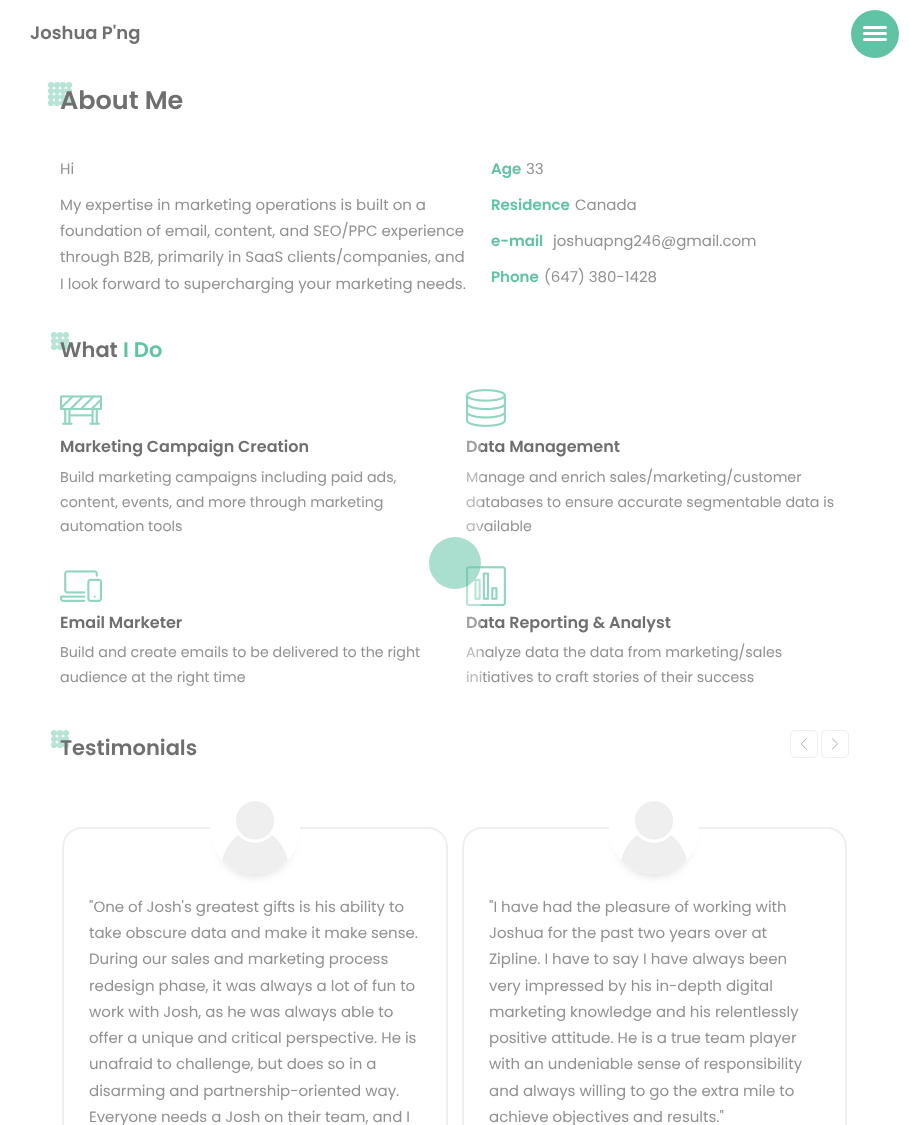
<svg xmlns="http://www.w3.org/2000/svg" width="909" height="1125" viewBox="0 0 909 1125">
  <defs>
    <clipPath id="clip1"><path d="M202 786H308V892H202ZM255 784C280 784 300 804 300 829C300 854 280 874 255 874C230 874 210 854 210 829C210 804 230 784 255 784Z" clip-rule="evenodd"/></clipPath>
    <clipPath id="clip2"><path d="M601 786H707V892H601ZM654 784C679 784 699 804 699 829C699 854 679 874 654 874C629 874 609 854 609 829C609 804 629 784 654 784Z" clip-rule="evenodd"/></clipPath>
  </defs>
  <rect width="100%" height="100%" fill="rgb(255,255,255)"/>
  <text x="30" y="39" font-family="Poppins" font-size="18" font-weight="600" fill="rgb(111,111,111)">Joshua P'ng</text>
  <circle cx="875" cy="34" r="24" fill="rgb(96,195,166)"/>
  <rect x="863" y="26" width="24" height="3" rx="1.5" fill="rgb(255,255,255)"/>
  <rect x="863" y="32" width="24" height="3" rx="1.5" fill="rgb(255,255,255)"/>
  <rect x="863" y="38" width="24" height="3" rx="1.5" fill="rgb(255,255,255)"/>
  <path d="M51 85H69.2M51 91H69.2M51 97H69.2M51 103H69.2" fill="none" stroke="rgb(184,228,215)" stroke-width="6.2" stroke-linecap="round" stroke-dasharray="0 6"/>
  <text x="60" y="109" font-family="Poppins" font-size="25.5" font-weight="600" fill="rgb(111,111,111)">About Me</text>
  <g font-family="Poppins" font-size="15" fill="rgb(145,145,145)">
    <text x="60" y="174">Hi</text>
    <text>
      <tspan x="60" y="210">My expertise in marketing operations is built on a</tspan>
      <tspan x="60" y="236">foundation of email, content, and SEO/PPC experience</tspan>
      <tspan x="60" y="262">through B2B, primarily in SaaS clients/companies, and</tspan>
      <tspan x="60" y="289">I look forward to supercharging your marketing needs.</tspan>
    </text>
  </g>
  <text x="491" y="174" font-family="Poppins" font-size="15" font-weight="600" fill="rgb(96,195,166)">Age</text>
  <text x="526" y="174" font-family="Poppins" font-size="15" fill="rgb(145,145,145)">33</text>
  <text x="491" y="210" font-family="Poppins" font-size="15" font-weight="600" fill="rgb(96,195,166)">Residence</text>
  <text x="575" y="210" font-family="Poppins" font-size="15" fill="rgb(145,145,145)">Canada</text>
  <text x="491" y="246" font-family="Poppins" font-size="15" font-weight="600" fill="rgb(96,195,166)">e-mail</text>
  <text x="553" y="246" font-family="Poppins" font-size="15" fill="rgb(145,145,145)">joshuapng246@gmail.com</text>
  <text x="491" y="282" font-family="Poppins" font-size="15" font-weight="600" fill="rgb(96,195,166)">Phone</text>
  <text x="544" y="282" font-family="Poppins" font-size="15" fill="rgb(145,145,145)">(647) 380-1428</text>
  <path d="M54 335H66.2M54 341H66.2M54 347H66.2" fill="none" stroke="rgb(184,228,215)" stroke-width="6.2" stroke-linecap="round" stroke-dasharray="0 6"/>
  <text x="60" y="357" font-family="Poppins" font-size="21" font-weight="600" fill="rgb(111,111,111)">What</text>
  <text x="123" y="357" font-family="Poppins" font-size="21" font-weight="600" fill="rgb(96,195,166)">I Do</text>
  <image x="60" y="395" width="42" height="30" href="pic1.png"/>
  <text x="60" y="452" font-family="Poppins" font-size="16" font-weight="600" fill="rgb(111,111,111)">Marketing Campaign Creation</text>
  <g font-family="Poppins" font-size="14.25" fill="rgb(145,145,145)">
    <text>
      <tspan x="60" y="482">Build marketing campaigns including paid ads,</tspan>
      <tspan x="60" y="507">content, events, and more through marketing</tspan>
      <tspan x="60" y="531">automation tools</tspan>
    </text>
  </g>
  <image x="60" y="570" width="42" height="32" href="pic2.png"/>
  <text x="60" y="628" font-family="Poppins" font-size="16" font-weight="600" fill="rgb(111,111,111)">Email Marketer</text>
  <g font-family="Poppins" font-size="14.25" fill="rgb(145,145,145)">
    <text>
      <tspan x="60" y="657">Build and create emails to be delivered to the right</tspan>
      <tspan x="60" y="682">audience at the right time</tspan>
    </text>
  </g>
  <image x="466" y="389" width="40" height="38" href="pic3.png"/>
  <text x="466" y="452" font-family="Poppins" font-size="16" font-weight="600" fill="rgb(111,111,111)">Data Management</text>
  <g font-family="Poppins" font-size="14.25" fill="rgb(145,145,145)">
    <text>
      <tspan x="466" y="482">Manage and enrich sales/marketing/customer</tspan>
      <tspan x="466" y="507">databases to ensure accurate segmentable data is</tspan>
      <tspan x="466" y="531">available</tspan>
    </text>
  </g>
  <image x="466" y="566" width="40" height="41" href="pic4.png"/>
  <text x="466" y="628" font-family="Poppins" font-size="16" font-weight="600" fill="rgb(111,111,111)">Data Reporting &amp; Analyst</text>
  <g font-family="Poppins" font-size="14.25" fill="rgb(145,145,145)">
    <text>
      <tspan x="466" y="657">Analyze data the data from marketing/sales</tspan>
      <tspan x="466" y="682">initiatives to craft stories of their success</tspan>
    </text>
  </g>
  <path d="M54 733H66.2M54 739H66.2M54 745H66.2" fill="none" stroke="rgb(184,228,215)" stroke-width="6.2" stroke-linecap="round" stroke-dasharray="0 6"/>
  <text x="60" y="755" font-family="Poppins" font-size="21" font-weight="600" fill="rgb(111,111,111)">Testimonials</text>
  <rect x="790.5" y="730.5" width="27" height="27" rx="4.5" fill="none" stroke="rgb(238,238,238)"/>
  <image x="800" y="738" width="7" height="12" href="pic5.png"/>
  <rect x="821.5" y="730.5" width="27" height="27" rx="4.5" fill="none" stroke="rgb(238,238,238)"/>
  <image x="831" y="738" width="7" height="12" href="pic6.png"/>
  <rect x="63" y="828" width="384" height="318" rx="19" fill="none" stroke="rgb(238,239,239)" stroke-width="2"/>
  <g clip-path="url(#clip1)">
    <rect x="218" y="802" width="74" height="74" rx="37" fill="rgba(89,89,89,0.22)" filter="blur(5px)"/>
  </g>
  <image x="210" y="801" width="90" height="73" href="pic7.png"/>
  <g font-family="Poppins" font-size="15" fill="rgb(145,145,145)">
    <text>
      <tspan x="89" y="912">"One of Josh's greatest gifts is his ability to</tspan>
      <tspan x="89" y="938">take obscure data and make it make sense.</tspan>
      <tspan x="89" y="964">During our sales and marketing process</tspan>
      <tspan x="89" y="991">redesign phase, it was always a lot of fun to</tspan>
      <tspan x="89" y="1017">work with Josh, as he was always able to</tspan>
      <tspan x="89" y="1043">offer a unique and critical perspective. He is</tspan>
      <tspan x="89" y="1069">unafraid to challenge, but does so in a</tspan>
      <tspan x="89" y="1096">disarming and partnership-oriented way.</tspan>
      <tspan x="89" y="1122">Everyone needs a Josh on their team, and I</tspan>
    </text>
  </g>
  <rect x="463" y="828" width="383" height="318" rx="19" fill="none" stroke="rgb(238,239,239)" stroke-width="2"/>
  <g clip-path="url(#clip2)">
    <rect x="617" y="802" width="74" height="74" rx="37" fill="rgba(89,89,89,0.22)" filter="blur(5px)"/>
  </g>
  <image x="609" y="801" width="90" height="73" href="pic7.png"/>
  <g font-family="Poppins" font-size="15" fill="rgb(145,145,145)">
    <text>
      <tspan x="489" y="912">"I have had the pleasure of working with</tspan>
      <tspan x="489" y="938">Joshua for the past two years over at</tspan>
      <tspan x="489" y="964">Zipline. I have to say I have always been</tspan>
      <tspan x="489" y="991">very impressed by his in-depth digital</tspan>
      <tspan x="489" y="1017">marketing knowledge and his relentlessly</tspan>
      <tspan x="489" y="1043">positive attitude. He is a true team player</tspan>
      <tspan x="489" y="1069">with an undeniable sense of responsibility</tspan>
      <tspan x="489" y="1096">and always willing to go the extra mile to</tspan>
      <tspan x="489" y="1122">achieve objectives and results."</tspan>
    </text>
  </g>
  <rect x="466" y="440" width="15" height="242" fill="rgba(255,255,255,0.35)"/>
  <circle cx="455" cy="563" r="26" fill="rgba(11,163,118,0.35)"/>
</svg>
